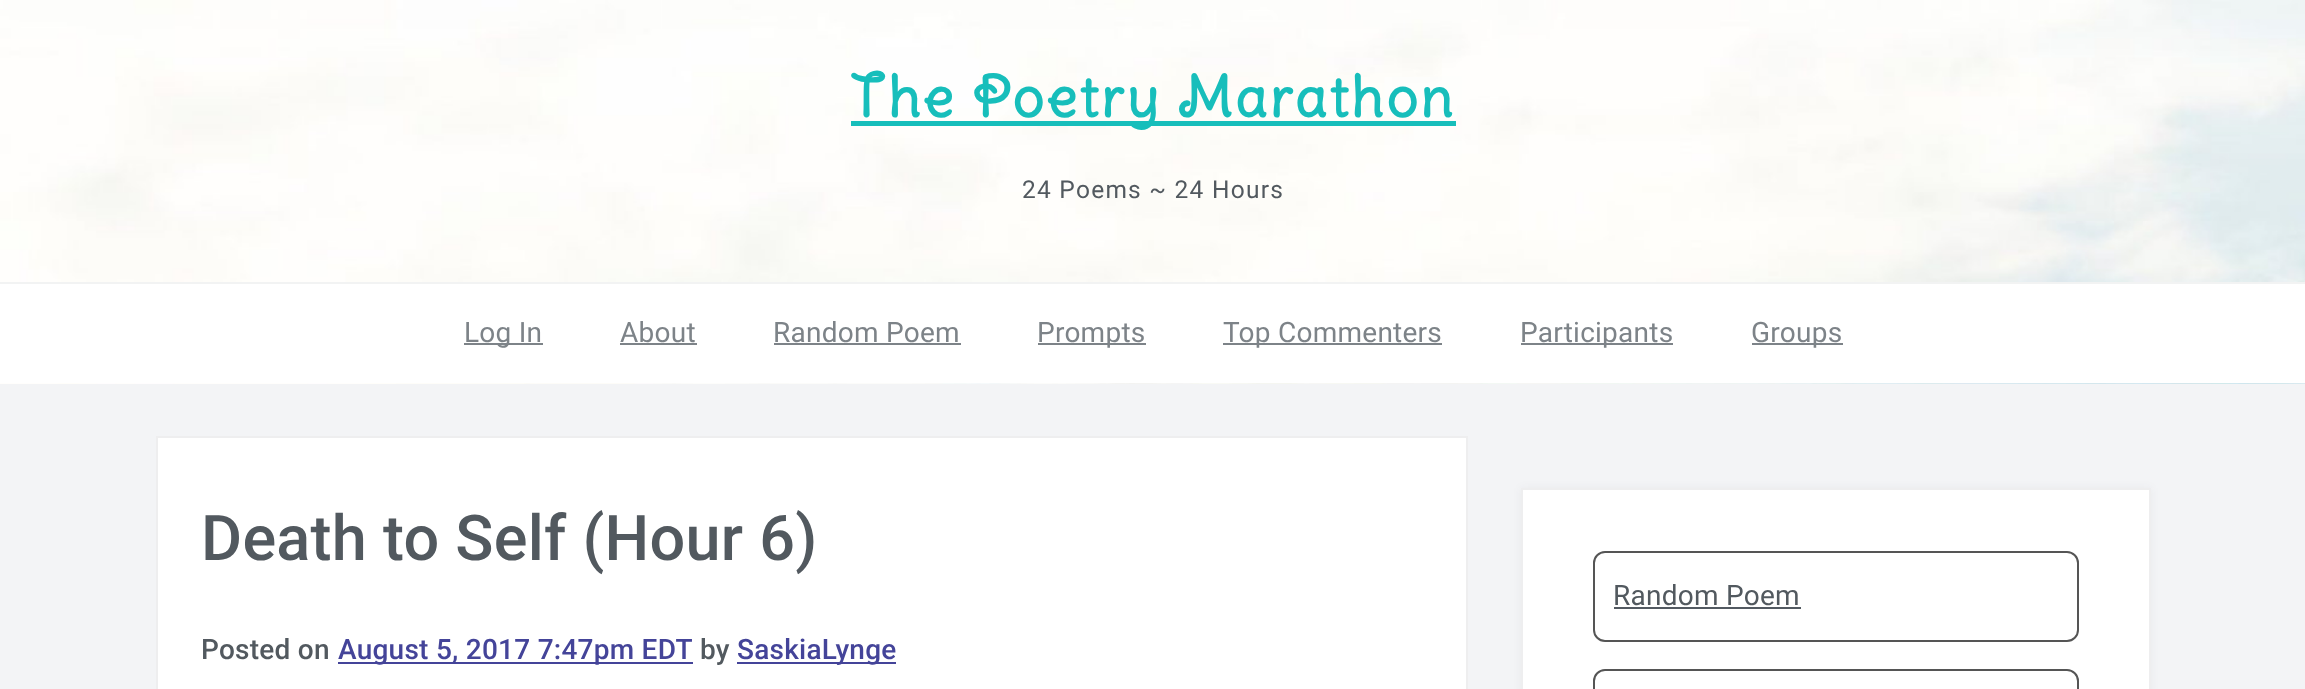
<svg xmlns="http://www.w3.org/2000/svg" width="2305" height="689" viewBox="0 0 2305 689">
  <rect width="100%" height="100%" fill="rgb(243,244,246)"/>
  <image x="0" y="0" width="2305" height="384" href="pic1.png"/>
  <rect x="851" y="121" width="605" height="5" fill="rgb(23,190,187)"/>
  <text x="850" y="117" font-family="Delius Swash Caps" font-size="56" font-weight="bold" letter-spacing="2.75" fill="rgb(23,190,187)">The Poetry Marathon</text>
  <text x="1022" y="198" font-family="Roboto" font-size="24.5" letter-spacing="1.25" fill="rgb(82,89,95)">24 Poems ~ 24 Hours</text>
  <rect x="0" y="284" width="2305" height="99" fill="rgb(255,255,255)"/>
  <rect x="0" y="282" width="2305" height="2" fill="rgb(242,243,243)"/>
  <rect x="464" y="343" width="79" height="2" fill="rgb(125,131,136)"/>
  <g font-family="Roboto" font-size="28" letter-spacing="0.25" fill="rgb(125,131,136)">
    <text x="464" y="342">Log In</text>
    <text x="620" y="342">About</text>
  </g>
  <rect x="620" y="343" width="77" height="2" fill="rgb(125,131,136)"/>
  <text x="773" y="342" font-family="Roboto" font-size="28" letter-spacing="0.25" fill="rgb(125,131,136)">Random Poem</text>
  <rect x="774" y="343" width="187" height="2" fill="rgb(125,131,136)"/>
  <rect x="1038" y="343" width="108" height="2" fill="rgb(125,131,136)"/>
  <text x="1037" y="342" font-family="Roboto" font-size="28" letter-spacing="0.25" fill="rgb(125,131,136)">Prompts</text>
  <rect x="1223" y="343" width="219" height="2" fill="rgb(125,131,136)"/>
  <text x="1223" y="342" font-family="Roboto" font-size="28" letter-spacing="0.25" fill="rgb(125,131,136)">Top Commenters</text>
  <rect x="1521" y="343" width="152" height="2" fill="rgb(125,131,136)"/>
  <text x="1520" y="342" font-family="Roboto" font-size="28" letter-spacing="0.25" fill="rgb(125,131,136)">Participants</text>
  <rect x="1752" y="343" width="91" height="2" fill="rgb(125,131,136)"/>
  <text x="1751" y="342" font-family="Roboto" font-size="28" letter-spacing="0.25" fill="rgb(125,131,136)">Groups</text>
  <rect x="157" y="437" width="1310" height="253" fill="rgb(255,255,255)" stroke="rgb(238,238,239)" stroke-width="2"/>
  <text x="201" y="560" font-family="Roboto" font-size="63" font-weight="500" letter-spacing="0.25" fill="rgb(82,89,95)">Death to Self (Hour 6)</text>
  <text x="201" y="659" font-family="Roboto" font-size="28" font-weight="500" letter-spacing="0.25" fill="rgb(82,89,95)">Posted on</text>
  <rect x="338" y="662" width="355" height="2" fill="rgb(68,68,153)"/>
  <text x="338" y="659" font-family="Roboto" font-size="28" font-weight="500" letter-spacing="0.25" fill="rgb(68,68,153)">August 5, 2017 7:47pm EDT</text>
  <text x="700" y="659" font-family="Roboto" font-size="28" font-weight="500" letter-spacing="0.25" fill="rgb(82,89,95)">by</text>
  <rect x="737" y="662" width="159" height="2" fill="rgb(68,68,153)"/>
  <text x="737" y="659" font-family="Roboto" font-size="28" font-weight="500" letter-spacing="0.25" fill="rgb(68,68,153)">SaskiaLynge</text>
  <rect x="1521" y="488" width="630" height="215" fill="rgba(39,48,57,0.05)" filter="blur(4.5px)"/>
  <rect x="1522" y="489" width="628" height="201" fill="rgb(255,255,255)" stroke="rgb(238,238,239)" stroke-width="2"/>
  <rect x="1594" y="552" width="484" height="89" rx="11" fill="none" stroke="rgb(85,85,85)" stroke-width="2"/>
  <text x="1613" y="605" font-family="Roboto" font-size="28" letter-spacing="0.25" fill="rgb(82,89,95)">Random Poem</text>
  <rect x="1614" y="607" width="187" height="2" fill="rgb(82,89,97)"/>
  <rect x="1594" y="670" width="484" height="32" rx="11" fill="none" stroke="rgb(85,85,85)" stroke-width="2"/>
</svg>
